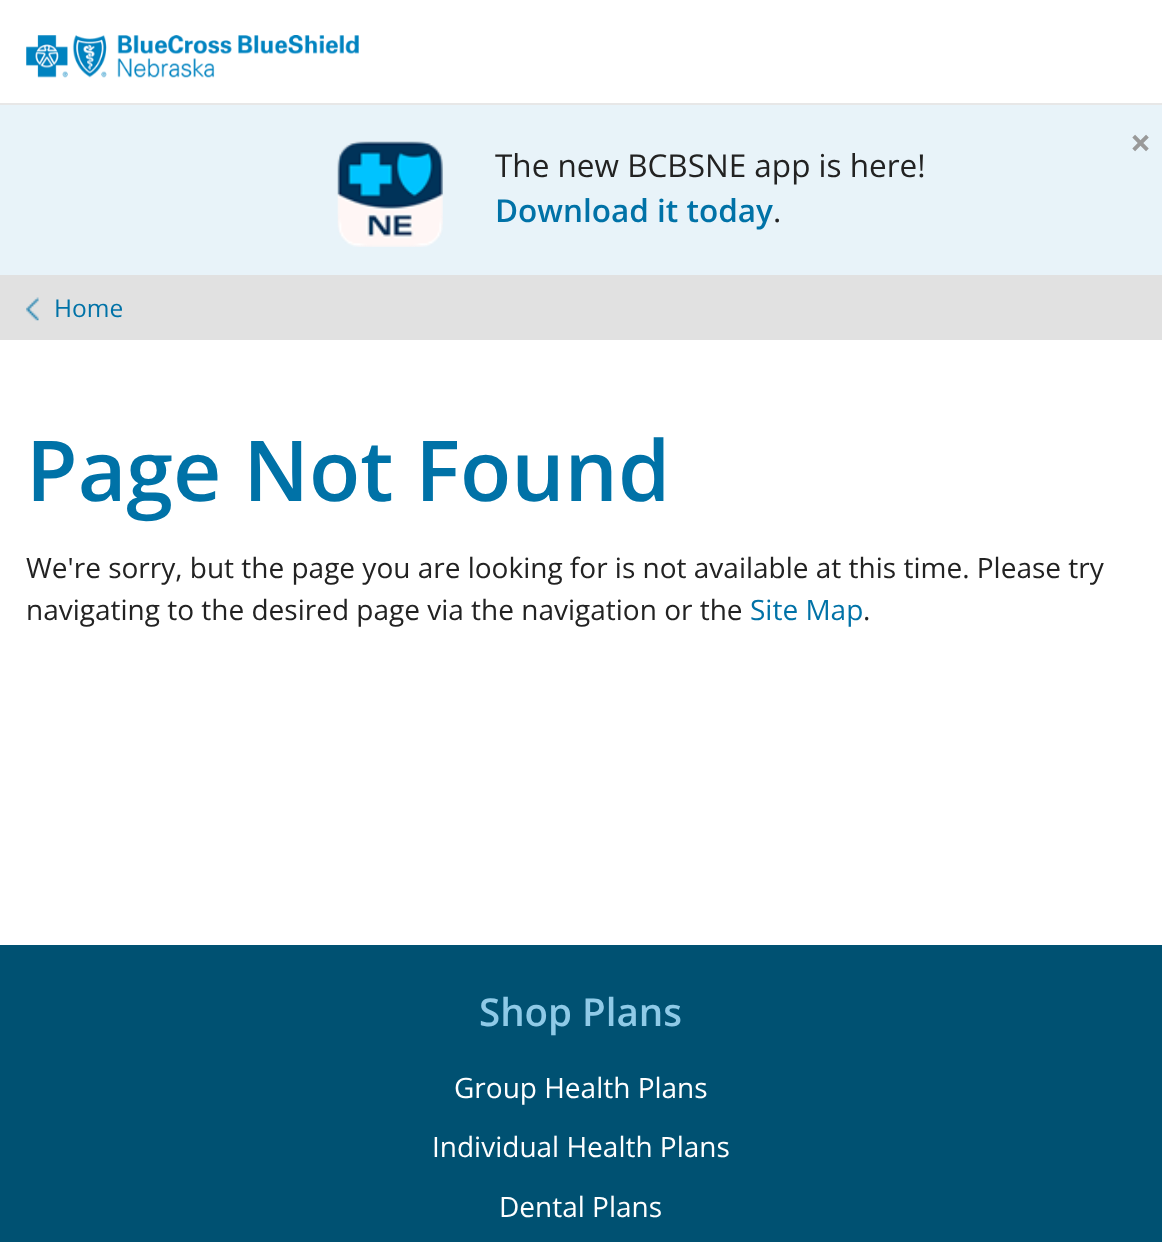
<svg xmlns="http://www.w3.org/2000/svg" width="1162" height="1242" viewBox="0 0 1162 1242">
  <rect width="100%" height="100%" fill="rgb(255,255,255)"/>
  <rect x="0" y="103" width="1162" height="2" fill="rgb(231,231,231)"/>
  <image x="26" y="35" width="333" height="43" href="pic1.png"/>
  <rect x="0" y="105" width="1162" height="170" fill="rgb(232,243,249)"/>
  <text x="1130" y="156" font-family="Open Sans" font-size="37" font-weight="bold" fill="rgb(153,153,153)">×</text>
  <image x="337" y="141" width="106" height="106" href="pic2.png"/>
  <text x="495" y="177" font-family="Open Sans" font-size="31.5" fill="rgb(34,34,34)">The new BCBSNE app is here!</text>
  <text x="495" y="222" font-family="Open Sans" font-size="31.5" font-weight="600" fill="rgb(0,114,167)">Download it today</text>
  <text x="773" y="222" font-family="Open Sans" font-size="31.5" fill="rgb(34,34,34)">.</text>
  <rect x="0" y="275" width="1162" height="65" fill="rgb(225,225,225)"/>
  <image x="26" y="297" width="13" height="24" href="pic3.png"/>
  <text x="54" y="317" font-family="Open Sans" font-size="24.5" fill="rgb(0,114,167)">Home</text>
  <text x="26" y="501" font-family="Open Sans" font-size="84" font-weight="600" fill="rgb(0,114,167)">Page Not Found</text>
  <g font-family="Open Sans" font-size="28" fill="rgb(34,34,34)">
    <text>
      <tspan x="26" y="578">We're sorry, but the page you are looking for is not available at this time. Please try</tspan>
      <tspan x="26" y="620">navigating to the desired page via the navigation or the</tspan>
    </text>
  </g>
  <text x="750" y="620" font-family="Open Sans" font-size="28" fill="rgb(0,114,167)">Site Map</text>
  <text x="863" y="620" font-family="Open Sans" font-size="28" fill="rgb(34,34,34)">.</text>
  <rect x="0" y="945" width="1162" height="297" fill="rgb(0,81,114)"/>
  <text x="479" y="1026" font-family="Open Sans" font-size="38.5" font-weight="600" fill="rgb(143,202,231)">Shop Plans</text>
  <g font-family="Open Sans" font-size="28" fill="rgb(255,255,255)">
    <text x="454" y="1098">Group Health Plans</text>
    <text x="432" y="1157">Individual Health Plans</text>
    <text x="499" y="1217">Dental Plans</text>
  </g>
</svg>
